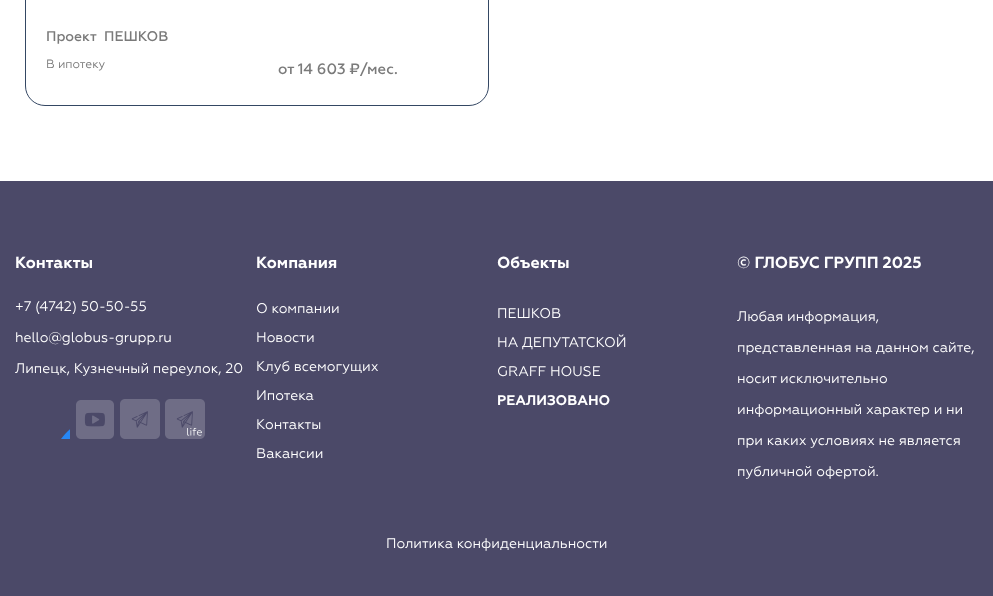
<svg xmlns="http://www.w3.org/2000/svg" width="993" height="596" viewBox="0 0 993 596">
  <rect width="100%" height="100%" fill="rgb(255,255,255)"/>
  <rect x="25.5" y="-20.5" width="463" height="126" rx="19.5" fill="none" stroke="rgb(52,71,99)"/>
  <g font-family="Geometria" font-size="14" font-weight="500" fill="rgb(122,122,122)">
    <text x="46" y="41">Проект</text>
    <text x="104" y="41">ПЕШКОВ</text>
  </g>
  <text x="46" y="68" font-family="Geometria" font-size="12" fill="rgb(122,122,122)">В ипотеку</text>
  <text x="278" y="74" font-family="Geometria" font-size="15" font-weight="500" fill="rgb(122,122,122)">от 14 603 ₽/мес.</text>
  <rect x="0" y="181" width="993" height="415" fill="rgb(75,73,104)"/>
  <text x="15" y="268" font-family="Geometria" font-size="16" font-weight="bold" fill="rgb(255,255,255)">Контакты</text>
  <g font-family="Geometria" font-size="14" fill="rgb(255,255,255)">
    <text x="15" y="311">+7 (4742) 50-50-55</text>
    <text x="15" y="342">hello@globus-grupp.ru</text>
    <text x="15" y="373">Липецк, Кузнечный переулок, 20</text>
  </g>
  <image x="61" y="429" width="9" height="10" href="pic1.png"/>
  <image x="76" y="400" width="38" height="39" href="pic2.png"/>
  <image x="120" y="399" width="40" height="40" href="pic3.png"/>
  <image x="165" y="399" width="40" height="40" href="pic4.png"/>
  <text x="256" y="268" font-family="Geometria" font-size="16" font-weight="bold" fill="rgb(255,255,255)">Компания</text>
  <g font-family="Geometria" font-size="14" fill="rgb(255,255,255)">
    <text x="256" y="313">О компании</text>
    <text x="256" y="342">Новости</text>
    <text x="256" y="371">Клуб всемогущих</text>
    <text x="256" y="400">Ипотека</text>
    <text x="256" y="429">Контакты</text>
    <text x="256" y="458">Вакансии</text>
  </g>
  <text x="497" y="268" font-family="Geometria" font-size="16" font-weight="bold" fill="rgb(255,255,255)">Объекты</text>
  <g font-family="Geometria" font-size="14" fill="rgb(255,255,255)">
    <text x="497" y="318">ПЕШКОВ</text>
    <text x="497" y="347">НА ДЕПУТАТСКОЙ</text>
    <text x="497" y="376">GRAFF HOUSE</text>
  </g>
  <text x="497" y="405" font-family="Geometria" font-size="14" font-weight="bold" fill="rgb(255,255,255)">РЕАЛИЗОВАНО</text>
  <text x="737" y="268" font-family="Geometria" font-size="16" font-weight="bold" fill="rgb(255,255,255)">© ГЛОБУС ГРУПП 2025</text>
  <g font-family="Geometria" font-size="14" fill="rgb(255,255,255)">
    <text x="737" y="321">Любая информация,</text>
    <text x="737" y="352">представленная на данном сайте,</text>
    <text x="737" y="383">носит исключительно</text>
    <text x="737" y="414">информационный характер и ни</text>
    <text x="737" y="445">при каких условиях не является</text>
    <text x="737" y="476">публичной офертой.</text>
    <text x="386" y="548">Политика конфиденциальности</text>
  </g>
</svg>
